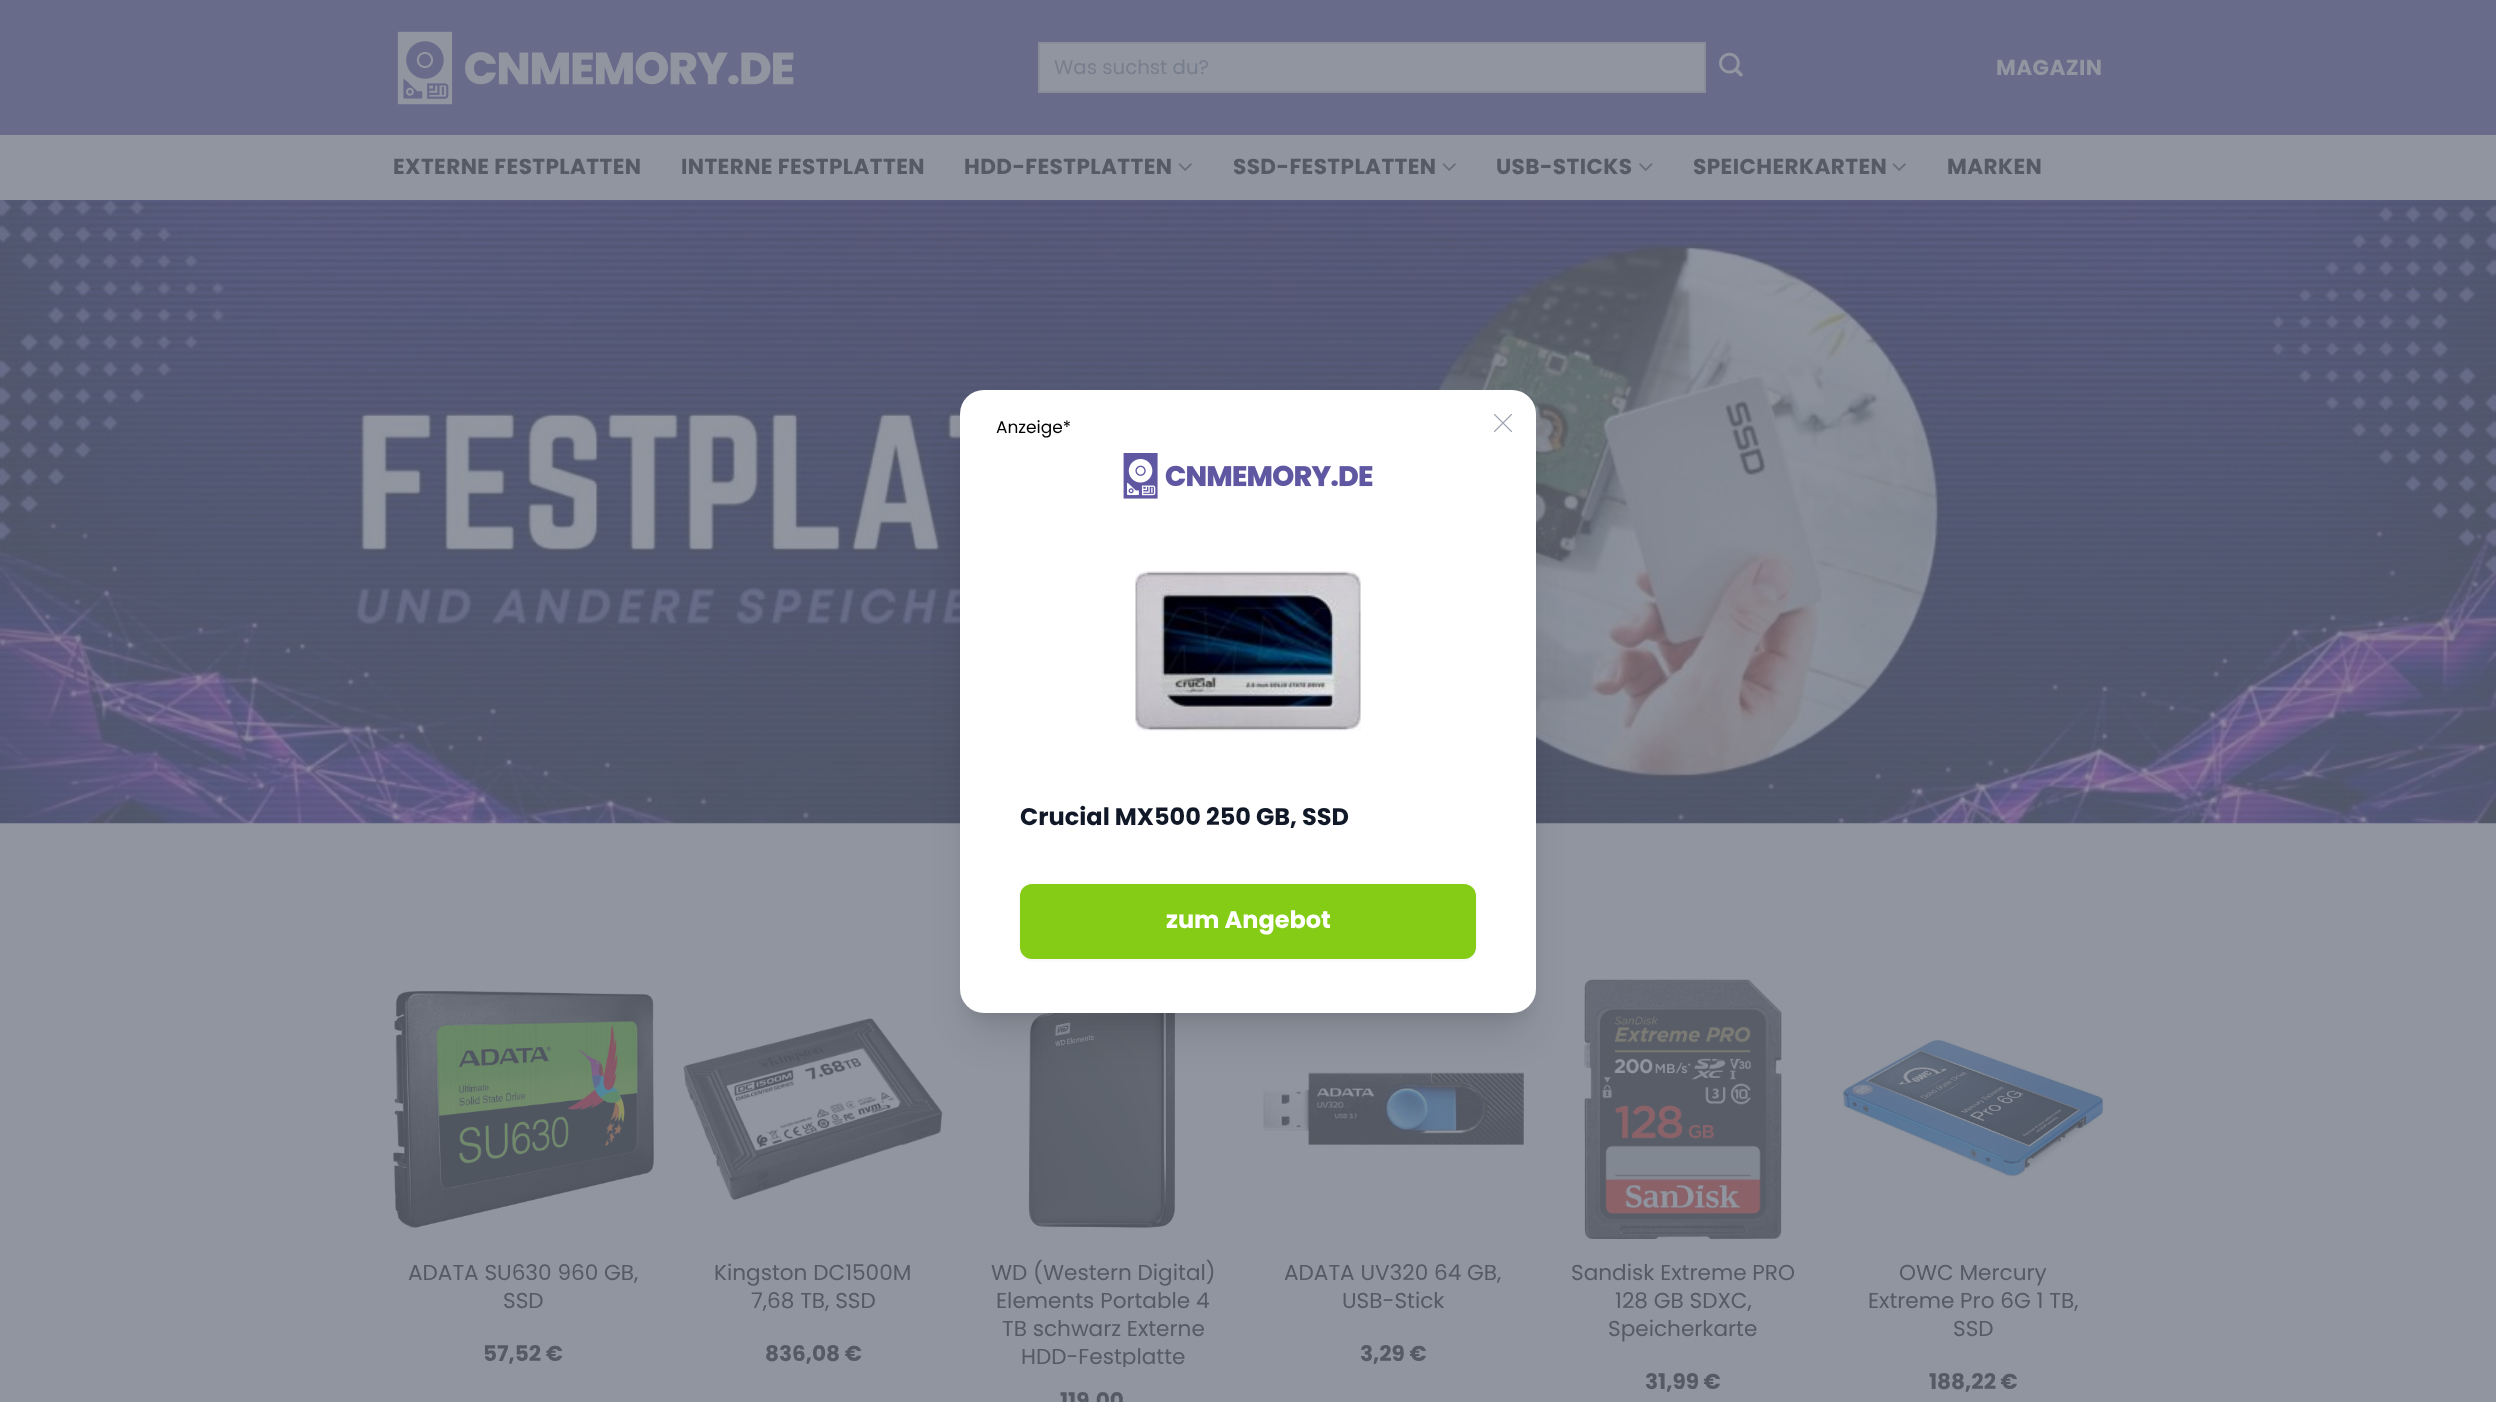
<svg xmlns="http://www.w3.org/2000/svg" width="2496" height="1402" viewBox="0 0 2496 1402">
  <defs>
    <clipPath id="clip1"><rect x="987" y="1254" width="231" height="113"/></clipPath>
  </defs>
  <rect width="100%" height="100%" fill="rgb(144,149,160)"/>
  <rect x="0" y="0" width="2496" height="135" fill="rgb(104,107,137)"/>
  <image x="397" y="31" width="397" height="74" href="pic1.png"/>
  <rect x="1039" y="43" width="666" height="49" fill="rgb(144,149,160)" stroke="rgb(136,141,151)" stroke-width="2"/>
  <text x="1054" y="74" font-family="Poppins" font-size="19.75" fill="rgb(119,126,140)">Was suchst du?</text>
  <image x="1719" y="52" width="24" height="25" href="pic2.png"/>
  <text x="1996" y="75" font-family="Poppins" font-size="21.6" font-weight="bold" letter-spacing="0.4" fill="rgb(144,149,160)">MAGAZIN</text>
  <g font-family="Poppins" font-size="21.6" font-weight="bold" letter-spacing="0.4" fill="rgb(85,90,100)">
    <text x="393" y="174">EXTERNE FESTPLATTEN</text>
    <text x="681" y="174">INTERNE FESTPLATTEN</text>
    <text x="964" y="174">HDD-FESTPLATTEN</text>
  </g>
  <image x="1178" y="163" width="14" height="8" href="pic3.png"/>
  <text x="1233" y="174" font-family="Poppins" font-size="21.6" font-weight="bold" letter-spacing="0.4" fill="rgb(85,90,100)">SSD-FESTPLATTEN</text>
  <image x="1442" y="163" width="14" height="8" href="pic3.png"/>
  <text x="1496" y="174" font-family="Poppins" font-size="21.6" font-weight="bold" letter-spacing="0.4" fill="rgb(85,90,100)">USB-STICKS</text>
  <image x="1639" y="163" width="14" height="8" href="pic4.png"/>
  <text x="1693" y="174" font-family="Poppins" font-size="21.6" font-weight="bold" letter-spacing="0.4" fill="rgb(85,90,100)">SPEICHERKARTEN</text>
  <image x="1892" y="163" width="14" height="8" href="pic3.png"/>
  <text x="1947" y="174" font-family="Poppins" font-size="21.6" font-weight="bold" letter-spacing="0.4" fill="rgb(85,90,100)">MARKEN</text>
  <image x="0" y="200" width="2496" height="624" href="pic5.png"/>
  <image x="393" y="991" width="261" height="237" href="pic6.png"/>
  <g font-family="Poppins" font-size="21.6" fill="rgb(85,90,100)">
    <text x="408" y="1280">ADATA SU630 960 GB,</text>
    <text x="503" y="1308">SSD</text>
  </g>
  <text x="483" y="1361" font-family="Poppins" font-size="21.6" font-weight="bold" fill="rgb(85,90,100)">57,52 €</text>
  <image x="683" y="1018" width="260" height="183" href="pic7.png"/>
  <g font-family="Poppins" font-size="21.6" fill="rgb(85,90,100)">
    <text x="714" y="1280">Kingston DC1500M</text>
    <text x="751" y="1308">7,68 TB, SSD</text>
  </g>
  <text x="765" y="1361" font-family="Poppins" font-size="21.6" font-weight="bold" fill="rgb(85,90,100)">836,08 €</text>
  <image x="1028" y="1013" width="148" height="216" href="pic8.png"/>
  <g font-family="Poppins" font-size="21.6" fill="rgb(85,90,100)">
    <text x="991" y="1280">WD (Western Digital)</text>
    <text x="996" y="1308">Elements Portable 4</text>
    <text x="1002" y="1336">TB schwarz Externe</text>
  </g>
  <g clip-path="url(#clip1)">
    <text x="1021" y="1364" font-family="Poppins" font-size="21.6" fill="rgb(85,90,100)">HDD-Festplatte</text>
  </g>
  <text x="1060" y="1408" font-family="Poppins" font-size="21.6" font-weight="bold" fill="rgb(85,90,100)">119,00</text>
  <image x="1263" y="1072" width="261" height="76" href="pic9.png"/>
  <g font-family="Poppins" font-size="21.6" fill="rgb(85,90,100)">
    <text x="1284" y="1280">ADATA UV320 64 GB,</text>
    <text x="1342" y="1308">USB-Stick</text>
  </g>
  <text x="1360" y="1361" font-family="Poppins" font-size="21.6" font-weight="bold" fill="rgb(85,90,100)">3,29 €</text>
  <image x="1584" y="979" width="198" height="260" href="pic10.png"/>
  <g font-family="Poppins" font-size="21.6" fill="rgb(85,90,100)">
    <text x="1571" y="1280">Sandisk Extreme PRO</text>
    <text x="1615" y="1308">128 GB SDXC,</text>
    <text x="1608" y="1336">Speicherkarte</text>
  </g>
  <text x="1645" y="1389" font-family="Poppins" font-size="21.6" font-weight="bold" fill="rgb(85,90,100)">31,99 €</text>
  <image x="1842" y="1040" width="261" height="137" href="pic11.png"/>
  <g font-family="Poppins" font-size="21.6" fill="rgb(85,90,100)">
    <text x="1899" y="1280">OWC Mercury</text>
    <text x="1868" y="1308">Extreme Pro 6G 1 TB,</text>
    <text x="1953" y="1336">SSD</text>
  </g>
  <text x="1929" y="1389" font-family="Poppins" font-size="21.6" font-weight="bold" fill="rgb(85,90,100)">188,22 €</text>
  <rect x="969" y="411" width="558" height="605" rx="15" fill="rgba(0,0,0,0.1)" filter="blur(7.5px)"/>
  <rect x="968" y="428" width="561" height="607" rx="17" fill="rgba(0,0,0,0.1)" filter="blur(19px)"/>
  <rect x="960" y="390" width="576" height="623" rx="24" fill="rgb(255,255,255)"/>
  <text x="996" y="433" font-family="Poppins" font-size="17" fill="rgb(0,0,0)">Anzeige*</text>
  <path d="M1494.5 431.5L1511.5 414.5M1494.5 414.5L1511.5 431.5" fill="none" stroke="rgb(156,163,175)" stroke-width="1.1" stroke-linecap="round" stroke-linejoin="round"/>
  <image x="1123" y="453" width="250" height="46" href="pic12.png"/>
  <image x="1135" y="571" width="226" height="160" href="pic13.png"/>
  <text x="1020" y="825" font-family="Poppins" font-size="24" font-weight="bold" fill="rgb(17,24,39)">Crucial MX500 250 GB, SSD</text>
  <rect x="1020" y="885" width="456" height="75" rx="12" fill="rgba(0,0,0,0.05)" filter="blur(1.5px)"/>
  <rect x="1020" y="884" width="456" height="75" rx="12" fill="rgb(132,204,22)"/>
  <text x="1166" y="928" font-family="Poppins" font-size="24" font-weight="bold" fill="rgb(255,255,255)">zum Angebot</text>
</svg>
